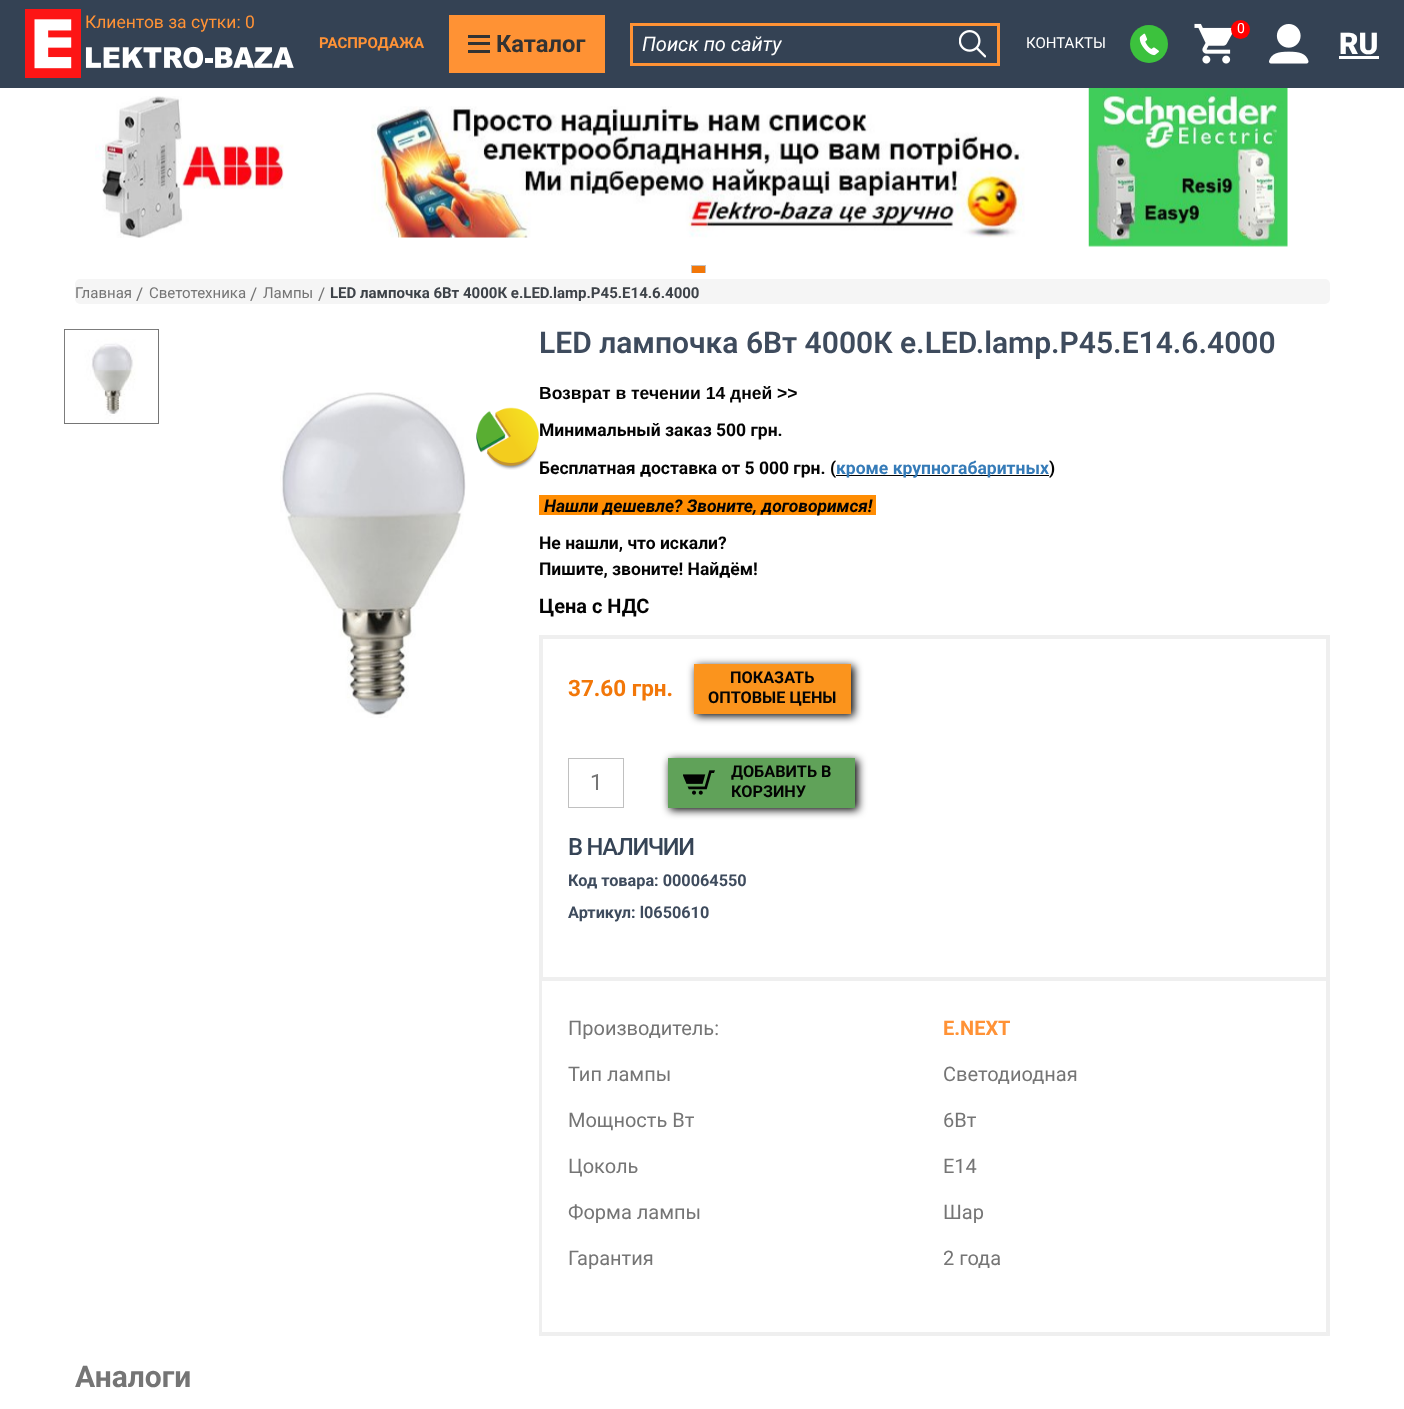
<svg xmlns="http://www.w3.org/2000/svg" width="1404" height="1409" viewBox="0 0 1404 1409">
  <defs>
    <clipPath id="clip1"><rect x="336" y="88" width="729" height="185"/></clipPath>
  </defs>
  <rect width="100%" height="100%" fill="rgb(255,255,255)"/>
  <rect x="0" y="0" width="1404" height="88" fill="rgb(52,66,84)"/>
  <image x="25" y="9" width="269" height="69" href="pic1.png"/>
  <text x="85" y="28" font-family="Roboto" font-size="17.5" fill="rgb(255,146,54)">Клиентов за сутки: 0</text>
  <text x="319" y="48" font-family="Roboto" font-size="15" font-weight="bold" fill="rgb(255,146,54)">РАСПРОДАЖА</text>
  <rect x="449" y="15" width="156" height="58" fill="rgb(255,146,52)"/>
  <rect x="468" y="50" width="22" height="3" fill="rgb(51,51,51)"/>
  <rect x="468" y="35" width="22" height="3" fill="rgb(51,51,51)"/>
  <rect x="468" y="42" width="22" height="3" fill="rgb(51,51,51)"/>
  <text x="496" y="52" font-family="Roboto" font-size="23.75" font-weight="bold" fill="rgb(51,51,51)">Каталог</text>
  <rect x="631.5" y="24.5" width="367" height="40" fill="none" stroke="rgb(255,146,52)" stroke-width="3"/>
  <text x="642" y="51" font-family="Roboto" font-size="20" font-style="italic" fill="rgb(255,255,255)">Поиск по сайту</text>
  <image x="959" y="30" width="27" height="28" href="pic2.png"/>
  <text x="1026" y="48" font-family="Roboto" font-size="15" fill="rgb(255,255,255)">КОНТАКТЫ</text>
  <circle cx="1149" cy="44" r="19" fill="rgb(60,194,61)"/>
  <image x="1139" y="33" width="20" height="23" href="pic3.png"/>
  <image x="1194" y="23" width="39" height="41" href="pic4.png"/>
  <circle cx="1240.5" cy="29.5" r="9.5" fill="rgb(255,0,0)"/>
  <text x="1237" y="33" font-family="Roboto" font-size="14" fill="rgb(255,255,255)">0</text>
  <image x="1269" y="24" width="40" height="40" href="pic5.png"/>
  <text x="1339" y="54" font-family="Roboto" font-size="30" font-weight="900" fill="rgb(255,255,255)">RU</text>
  <rect x="1339" y="56" width="40" height="3" fill="rgb(255,255,255)"/>
  <image x="95" y="96" width="189" height="142" href="pic6.png"/>
  <image x="697" y="162" width="10" height="13" href="pic7.png"/>
  <image x="371" y="106" width="654" height="132" href="pic8.png"/>
  <rect x="691" y="266" width="15" height="7" fill="rgb(242,119,9)"/>
  <rect x="75" y="279" width="1255" height="25" rx="5" fill="rgb(245,245,245)"/>
  <g clip-path="url(#clip1)">
    <rect x="691.5" y="265.5" width="14" height="14" fill="none" stroke="rgb(194,194,194)"/>
  </g>
  <image x="1088" y="88" width="200" height="159" href="pic9.png"/>
  <text x="75" y="298" font-family="Roboto" font-size="15" fill="rgb(117,117,117)">Главная</text>
  <text x="136" y="300" font-family="Roboto" font-size="17.5" fill="rgb(117,117,117)">/</text>
  <text x="149" y="298" font-family="Roboto" font-size="15" fill="rgb(117,117,117)">Светотехника</text>
  <text x="250" y="300" font-family="Roboto" font-size="17.5" fill="rgb(117,117,117)">/</text>
  <text x="263" y="298" font-family="Roboto" font-size="15" fill="rgb(117,117,117)">Лампы</text>
  <text x="318" y="300" font-family="Roboto" font-size="17.5" fill="rgb(117,117,117)">/</text>
  <text x="330" y="298" font-family="Roboto" font-size="15" font-weight="bold" fill="rgb(61,66,72)">LED лампочка 6Вт 4000К e.LED.lamp.P45.E14.6.4000</text>
  <rect x="64.5" y="329.5" width="94" height="94" fill="none" stroke="rgb(117,117,117)"/>
  <image x="64" y="329" width="93" height="93" href="pic10.png"/>
  <image x="280" y="392" width="186" height="326" href="pic11.png"/>
  <image x="476" y="407" width="63" height="63" href="pic12.png"/>
  <text x="539" y="353" font-family="Roboto" font-size="30" font-weight="600" fill="rgb(62,75,93)">LED лампочка 6Вт 4000К e.LED.lamp.P45.E14.6.4000</text>
  <text x="539" y="399" font-family="Liberation Sans" font-size="17.5" font-weight="bold" fill="rgb(3,3,3)">Возврат в течении 14 дней &gt;&gt;</text>
  <g font-family="Roboto" font-size="17.5" font-weight="bold" fill="rgb(3,3,3)">
    <text x="539" y="436">Минимальный заказ 500 грн.</text>
    <text x="539" y="474">Бесплатная доставка от 5 000 грн. (</text>
  </g>
  <rect x="836" y="475" width="213" height="1" fill="rgb(3,3,3)"/>
  <text x="836" y="474" font-family="Roboto" font-size="17.5" font-weight="bold" fill="rgb(53,123,184)">кроме крупногабаритных</text>
  <text x="1049" y="474" font-family="Roboto" font-size="17.5" font-weight="bold" fill="rgb(3,3,3)">)</text>
  <rect x="539" y="495" width="337" height="20" fill="rgb(255,141,3)"/>
  <text x="544" y="512" font-family="Roboto" font-size="17.5" font-weight="bold" font-style="italic" fill="rgb(3,3,3)">Нашли дешевле? Звоните, договоримся!</text>
  <g font-family="Roboto" font-size="17.5" font-weight="bold" fill="rgb(3,3,3)">
    <text>
      <tspan x="539" y="549">Не нашли, что искали?</tspan>
      <tspan x="539" y="575">Пишите, звоните! Найдём!</tspan>
    </text>
  </g>
  <text x="539" y="613" font-family="Roboto" font-size="20" font-weight="bold" fill="rgb(3,3,3)">Цена с НДС</text>
  <rect x="541" y="637" width="787" height="342" fill="none" stroke="rgb(239,239,239)" stroke-width="4"/>
  <text x="568" y="696" font-family="Roboto" font-size="22.5" font-weight="bold" fill="rgb(242,119,9)">37.60 грн.</text>
  <rect x="696" y="666" width="158" height="50" fill="rgb(3,3,3)" filter="blur(4px)"/>
  <rect x="694" y="664" width="157" height="50" fill="rgb(251,148,29)"/>
  <g font-family="Roboto" font-size="16.25" font-weight="bold" fill="rgb(3,3,3)">
    <text x="730" y="683">ПОКАЗАТЬ</text>
    <text x="708" y="703">ОПТОВЫЕ ЦЕНЫ</text>
  </g>
  <rect x="568.5" y="758.5" width="55" height="49" fill="none" stroke="rgb(192,192,192)"/>
  <text x="590" y="790" font-family="Roboto" font-size="22.5" fill="rgb(117,117,117)">1</text>
  <rect x="670" y="760" width="188" height="50" fill="rgb(3,3,3)" filter="blur(4px)"/>
  <rect x="668" y="758" width="187" height="50" fill="rgb(96,162,89)"/>
  <image x="683" y="770" width="32" height="25" href="pic13.png"/>
  <g font-family="Roboto" font-size="16.25" font-weight="bold" fill="rgb(3,3,3)">
    <text>
      <tspan x="731" y="777">ДОБАВИТЬ В</tspan>
      <tspan x="731" y="797">КОРЗИНУ</tspan>
    </text>
  </g>
  <text x="568" y="855" font-family="Roboto" font-size="23.75" font-weight="500" letter-spacing="-1.25" fill="rgb(54,68,86)">В НАЛИЧИИ</text>
  <g font-family="Roboto" font-size="16.25" font-weight="bold" fill="rgb(62,75,93)">
    <text>
      <tspan x="568" y="886">Код товара: 000064550</tspan>
      <tspan x="568" y="918">Артикул: l0650610</tspan>
    </text>
  </g>
  <path d="M1330 981V1336L1326 1332V981Z" fill="rgb(239,239,239)"/>
  <path d="M1330 1336H539L542 1332H1326Z" fill="rgba(188,188,188,0.24)"/>
  <path d="M539 1336V981H542V1332Z" fill="rgba(188,188,188,0.24)"/>
  <text x="568" y="1035" font-family="Roboto" font-size="20" fill="rgb(117,117,117)">Производитель:</text>
  <text x="943" y="1035" font-family="Roboto" font-size="20" font-weight="bold" fill="rgb(255,146,54)">E.NEXT</text>
  <g font-family="Roboto" font-size="20" fill="rgb(117,117,117)">
    <text x="568" y="1081">Тип лампы</text>
    <text x="943" y="1081">Светодиодная</text>
    <text x="568" y="1127">Мощность Вт</text>
    <text x="943" y="1127">6Вт</text>
    <text x="568" y="1173">Цоколь</text>
    <text x="943" y="1173">E14</text>
    <text x="568" y="1219">Форма лампы</text>
    <text x="943" y="1219">Шар</text>
    <text x="568" y="1265">Гарантия</text>
    <text x="943" y="1265">2 года</text>
  </g>
  <text x="75" y="1387" font-family="Roboto" font-size="30" font-weight="bold" fill="rgb(117,117,117)">Аналоги</text>
</svg>
